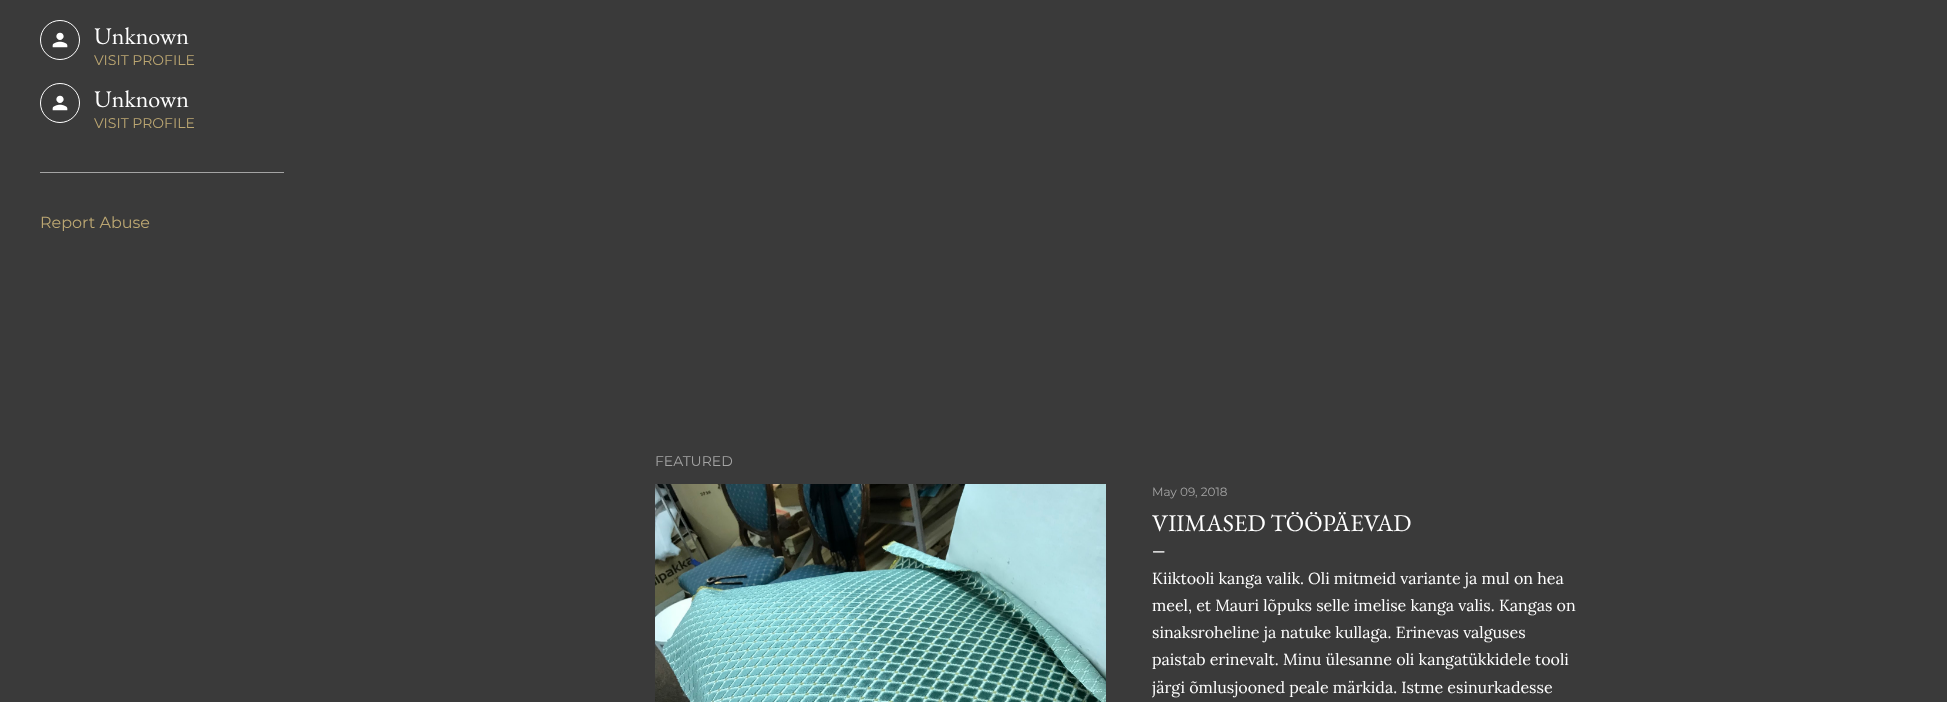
<svg xmlns="http://www.w3.org/2000/svg" width="1947" height="702" viewBox="0 0 1947 702">
  <defs>
    <clipPath id="clip1"><rect x="1152" y="538" width="425" height="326"/></clipPath>
  </defs>
  <rect width="100%" height="100%" fill="rgb(58,58,58)"/>
  <circle cx="60" cy="40" r="19.5" fill="none" stroke="rgb(255,255,255)"/>
  <image x="52" y="32" width="16" height="16" href="pic1.png"/>
  <text x="94" y="44" font-family="EB Garamond" font-size="24" fill="rgb(255,255,255)">Unknown</text>
  <text x="94" y="65" font-family="Montserrat" font-size="14" fill="rgb(188,167,114)">VISIT PROFILE</text>
  <circle cx="60" cy="103" r="19.5" fill="none" stroke="rgb(255,255,255)"/>
  <image x="52" y="95" width="16" height="16" href="pic1.png"/>
  <text x="94" y="107" font-family="EB Garamond" font-size="24" fill="rgb(255,255,255)">Unknown</text>
  <text x="94" y="128" font-family="Montserrat" font-size="14" fill="rgb(188,167,114)">VISIT PROFILE</text>
  <rect x="40" y="172" width="244" height="1" fill="rgb(164,164,164)"/>
  <text x="40" y="228" font-family="Montserrat" font-size="16" fill="rgb(188,167,114)">Report Abuse</text>
  <text x="655" y="466" font-family="Montserrat" font-size="14" fill="rgb(164,164,164)">FEATURED</text>
  <image x="655" y="484" width="451" height="218" href="pic2.png"/>
  <text x="1152" y="496" font-family="Montserrat" font-size="12" fill="rgb(164,164,164)">May 09, 2018</text>
  <text x="1152" y="531" font-family="EB Garamond" font-size="24" fill="rgb(255,255,255)">VIIMASED TÖÖPÄEVAD</text>
  <g font-family="Lora" font-size="16" fill="rgb(255,255,255)">
    <text>
      <tspan x="1152" y="557">—</tspan>
      <tspan x="1152" y="584">Kiiktooli kanga valik. Oli mitmeid variante ja mul on hea</tspan>
      <tspan x="1152" y="611">meel, et Mauri lõpuks selle imelise kanga valis. Kangas on</tspan>
      <tspan x="1152" y="638">sinaksroheline ja natuke kullaga. Erinevas valguses</tspan>
      <tspan x="1152" y="665">paistab erinevalt. Minu ülesanne oli kangatükkidele tooli</tspan>
    </text>
  </g>
  <g clip-path="url(#clip1)">
    <text x="1152" y="693" font-family="Lora" font-size="16" fill="rgb(255,255,255)">järgi õmlusjooned peale märkida. Istme esinurkadesse</text>
  </g>
</svg>
